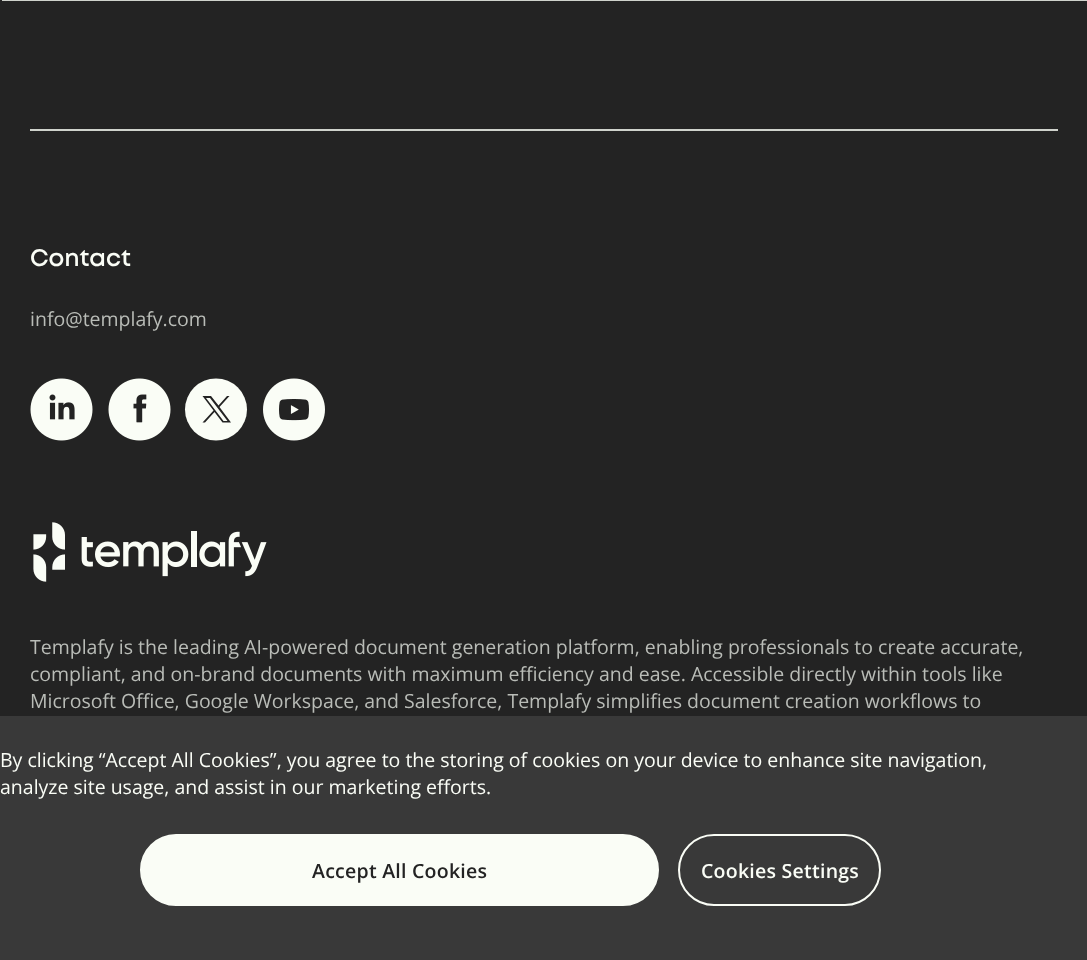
<svg xmlns="http://www.w3.org/2000/svg" width="1087" height="960" viewBox="0 0 1087 960">
  <rect width="100%" height="100%" fill="rgb(35,35,35)"/>
  <rect x="2" y="0" width="1085" height="1" fill="rgb(207,210,204)"/>
  <rect x="30" y="129" width="1028" height="2" fill="rgb(207,210,204)"/>
  <text x="30" y="266" font-family="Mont" font-size="24" font-weight="600" fill="rgb(250,253,246)">Contact</text>
  <text x="30" y="326" font-family="Open Sans" font-size="19.5" fill="rgb(185,188,183)">info@templafy.com</text>
  <image x="30" y="378" width="63" height="63" href="pic1.png"/>
  <image x="108" y="378" width="63" height="63" href="pic2.png"/>
  <circle cx="216" cy="409.5" r="31" fill="rgb(250,253,246)"/>
  <path d="M202.5 396L213.5 410.5L202.5 422.5H205L214.5 412L222.5 422.5H231L219.5 407L229.5 396H227L218.5 405.5L211 396ZM206 398H210L227.5 421H223.5Z" fill="rgb(35,35,35)"/>
  <image x="263" y="378" width="62" height="63" href="pic3.png"/>
  <image x="33" y="522" width="234" height="60" href="pic4.png"/>
  <g font-family="'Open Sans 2'" font-size="19.5" fill="rgb(185,188,183)">
    <text>
      <tspan x="30" y="654">Templafy is the leading AI-powered document generation platform, enabling professionals to create accurate,</tspan>
      <tspan x="30" y="681">compliant, and on-brand documents with maximum efficiency and ease. Accessible directly within tools like</tspan>
      <tspan x="30" y="708">Microsoft Office, Google Workspace, and Salesforce, Templafy simplifies document creation workflows to</tspan>
    </text>
  </g>
  <rect x="0" y="716" width="1087" height="244" fill="rgb(57,57,57)"/>
  <g font-family="Open Sans" font-size="19.5" fill="rgb(250,253,246)">
    <text>
      <tspan x="0" y="767">By clicking “Accept All Cookies”, you agree to the storing of cookies on your device to enhance site navigation,</tspan>
      <tspan x="0" y="794">analyze site usage, and assist in our marketing efforts.</tspan>
    </text>
  </g>
  <rect x="141" y="835" width="517" height="70" rx="35" fill="rgb(250,253,246)" stroke="rgb(250,253,246)" stroke-width="2"/>
  <text x="312" y="878" font-family="Open Sans" font-size="19.5" font-weight="600" letter-spacing="0.25" fill="rgb(35,35,35)">Accept All Cookies</text>
  <rect x="679" y="835" width="201" height="70" rx="35" fill="none" stroke="rgb(250,253,246)" stroke-width="2"/>
  <text x="701" y="878" font-family="Open Sans" font-size="19.5" font-weight="600" letter-spacing="0.25" fill="rgb(250,253,246)">Cookies Settings</text>
</svg>
